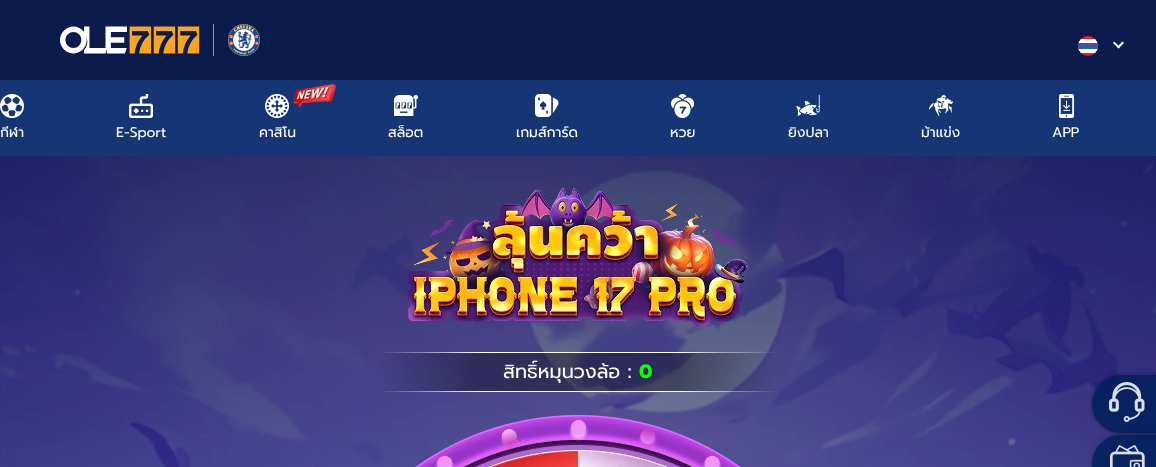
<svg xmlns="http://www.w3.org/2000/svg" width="1156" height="467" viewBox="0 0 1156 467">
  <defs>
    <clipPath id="clip1"><rect x="1078" y="39" width="20" height="14"/></clipPath>
    <clipPath id="clip2"><rect x="1078" y="43" width="20" height="6"/></clipPath>
    <clipPath id="clip3"><path d="M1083 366H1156V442H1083ZM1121 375H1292V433H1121C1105 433 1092 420 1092 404C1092 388 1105 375 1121 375Z" clip-rule="evenodd"/></clipPath>
    <clipPath id="clip4"><path d="M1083 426H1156V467H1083ZM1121 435H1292V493H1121C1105 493 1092 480 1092 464C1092 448 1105 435 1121 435Z" clip-rule="evenodd"/></clipPath>
  </defs>
  <rect width="100%" height="100%" fill="rgb(11,27,75)"/>
  <image x="60" y="23" width="200" height="34" href="pic1.png"/>
  <circle cx="1088" cy="46" r="10" fill="rgb(237,34,36)"/>
  <g clip-path="url(#clip1)">
    <circle cx="1088" cy="46" r="10" fill="rgb(255,255,255)"/>
  </g>
  <path d="M1122.5 41.5L1124 43L1118.5 48.5L1117 47Z" fill="rgb(255,255,255)"/>
  <path d="M1114 41.5L1120 47L1118.5 48.5L1113 43Z" fill="rgb(255,255,255)"/>
  <g clip-path="url(#clip2)">
    <circle cx="1088" cy="46" r="10" fill="rgb(58,83,164)"/>
  </g>
  <rect x="0" y="80" width="1156" height="76" fill="rgb(21,53,116)"/>
  <image x="0" y="94" width="24" height="24" href="pic2.png"/>
  <text x="0" y="137" font-family="Prompt" font-size="14" fill="rgb(255,255,255)">กีฬา</text>
  <image x="129" y="94" width="24" height="24" href="pic3.png"/>
  <text x="116" y="137" font-family="Prompt" font-size="14" fill="rgb(255,255,255)">E-Sport</text>
  <image x="265" y="94" width="24" height="24" href="pic4.png"/>
  <image x="293" y="84" width="43" height="23" href="pic5.png"/>
  <text x="259" y="137" font-family="Prompt" font-size="14" fill="rgb(255,255,255)">คาสิโน</text>
  <image x="394" y="95" width="24" height="21" href="pic6.png"/>
  <text x="388" y="137" font-family="Prompt" font-size="14" fill="rgb(255,255,255)">สล็อต</text>
  <image x="535" y="94" width="24" height="23" href="pic7.png"/>
  <text x="516" y="137" font-family="Prompt" font-size="14" fill="rgb(255,255,255)">เกมส์การ์ด</text>
  <image x="671" y="94" width="23" height="24" href="pic8.png"/>
  <text x="670" y="137" font-family="Prompt" font-size="14" fill="rgb(255,255,255)">หวย</text>
  <image x="796" y="95" width="24" height="21" href="pic9.png"/>
  <text x="788" y="137" font-family="Prompt" font-size="14" fill="rgb(255,255,255)">ยิงปลา</text>
  <image x="929" y="95" width="24" height="21" href="pic10.png"/>
  <text x="921" y="137" font-family="Prompt" font-size="14" fill="rgb(255,255,255)">ม้าแข่ง</text>
  <image x="1059" y="94" width="15" height="24" href="pic11.png"/>
  <text x="1052" y="137" font-family="Prompt" font-size="14" fill="rgb(255,255,255)">APP</text>
  <image x="0" y="156" width="1156" height="311" href="pic12.png"/>
  <image x="408" y="188" width="340" height="139" href="pic13.png"/>
  <image x="380" y="352" width="396" height="40" href="pic14.png"/>
  <text x="503" y="378" font-family="Prompt" font-size="19.25" fill="rgb(255,255,255)">สิทธิ์หมุนวงล้อ</text>
  <text x="620" y="378" font-family="WenQuanYi Zen Hei" font-size="19.25" font-weight="500" fill="rgb(255,255,255)">：</text>
  <text x="639" y="378" font-family="Prompt" font-size="19.25" font-weight="bold" fill="rgb(6,255,0)">0</text>
  <image x="415" y="415" width="326" height="52" href="pic15.png"/>
  <image x="312" y="466" width="2" height="1" href="pic16.png"/>
  <image x="489" y="451" width="177" height="16" href="pic17.png"/>
  <g clip-path="url(#clip3)">
    <rect x="1092" y="375" width="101" height="58" rx="29" fill="rgba(0,0,0,0.42)" filter="blur(2.5px)"/>
  </g>
  <path d="M1121 375H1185V433H1121C1105 433 1092 420 1092 404C1092 388 1105 375 1121 375Z" fill="rgba(0,30,90,0.85)"/>
  <image x="1109" y="382" width="36" height="40" href="pic18.png"/>
  <g clip-path="url(#clip4)">
    <rect x="1092" y="435" width="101" height="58" rx="29" fill="rgba(0,0,0,0.42)" filter="blur(2.5px)"/>
  </g>
  <path d="M1121 435H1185V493H1121C1105 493 1092 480 1092 464C1092 448 1105 435 1121 435Z" fill="rgba(0,30,90,0.85)"/>
  <image x="1110" y="445" width="35" height="22" href="pic19.png"/>
</svg>
